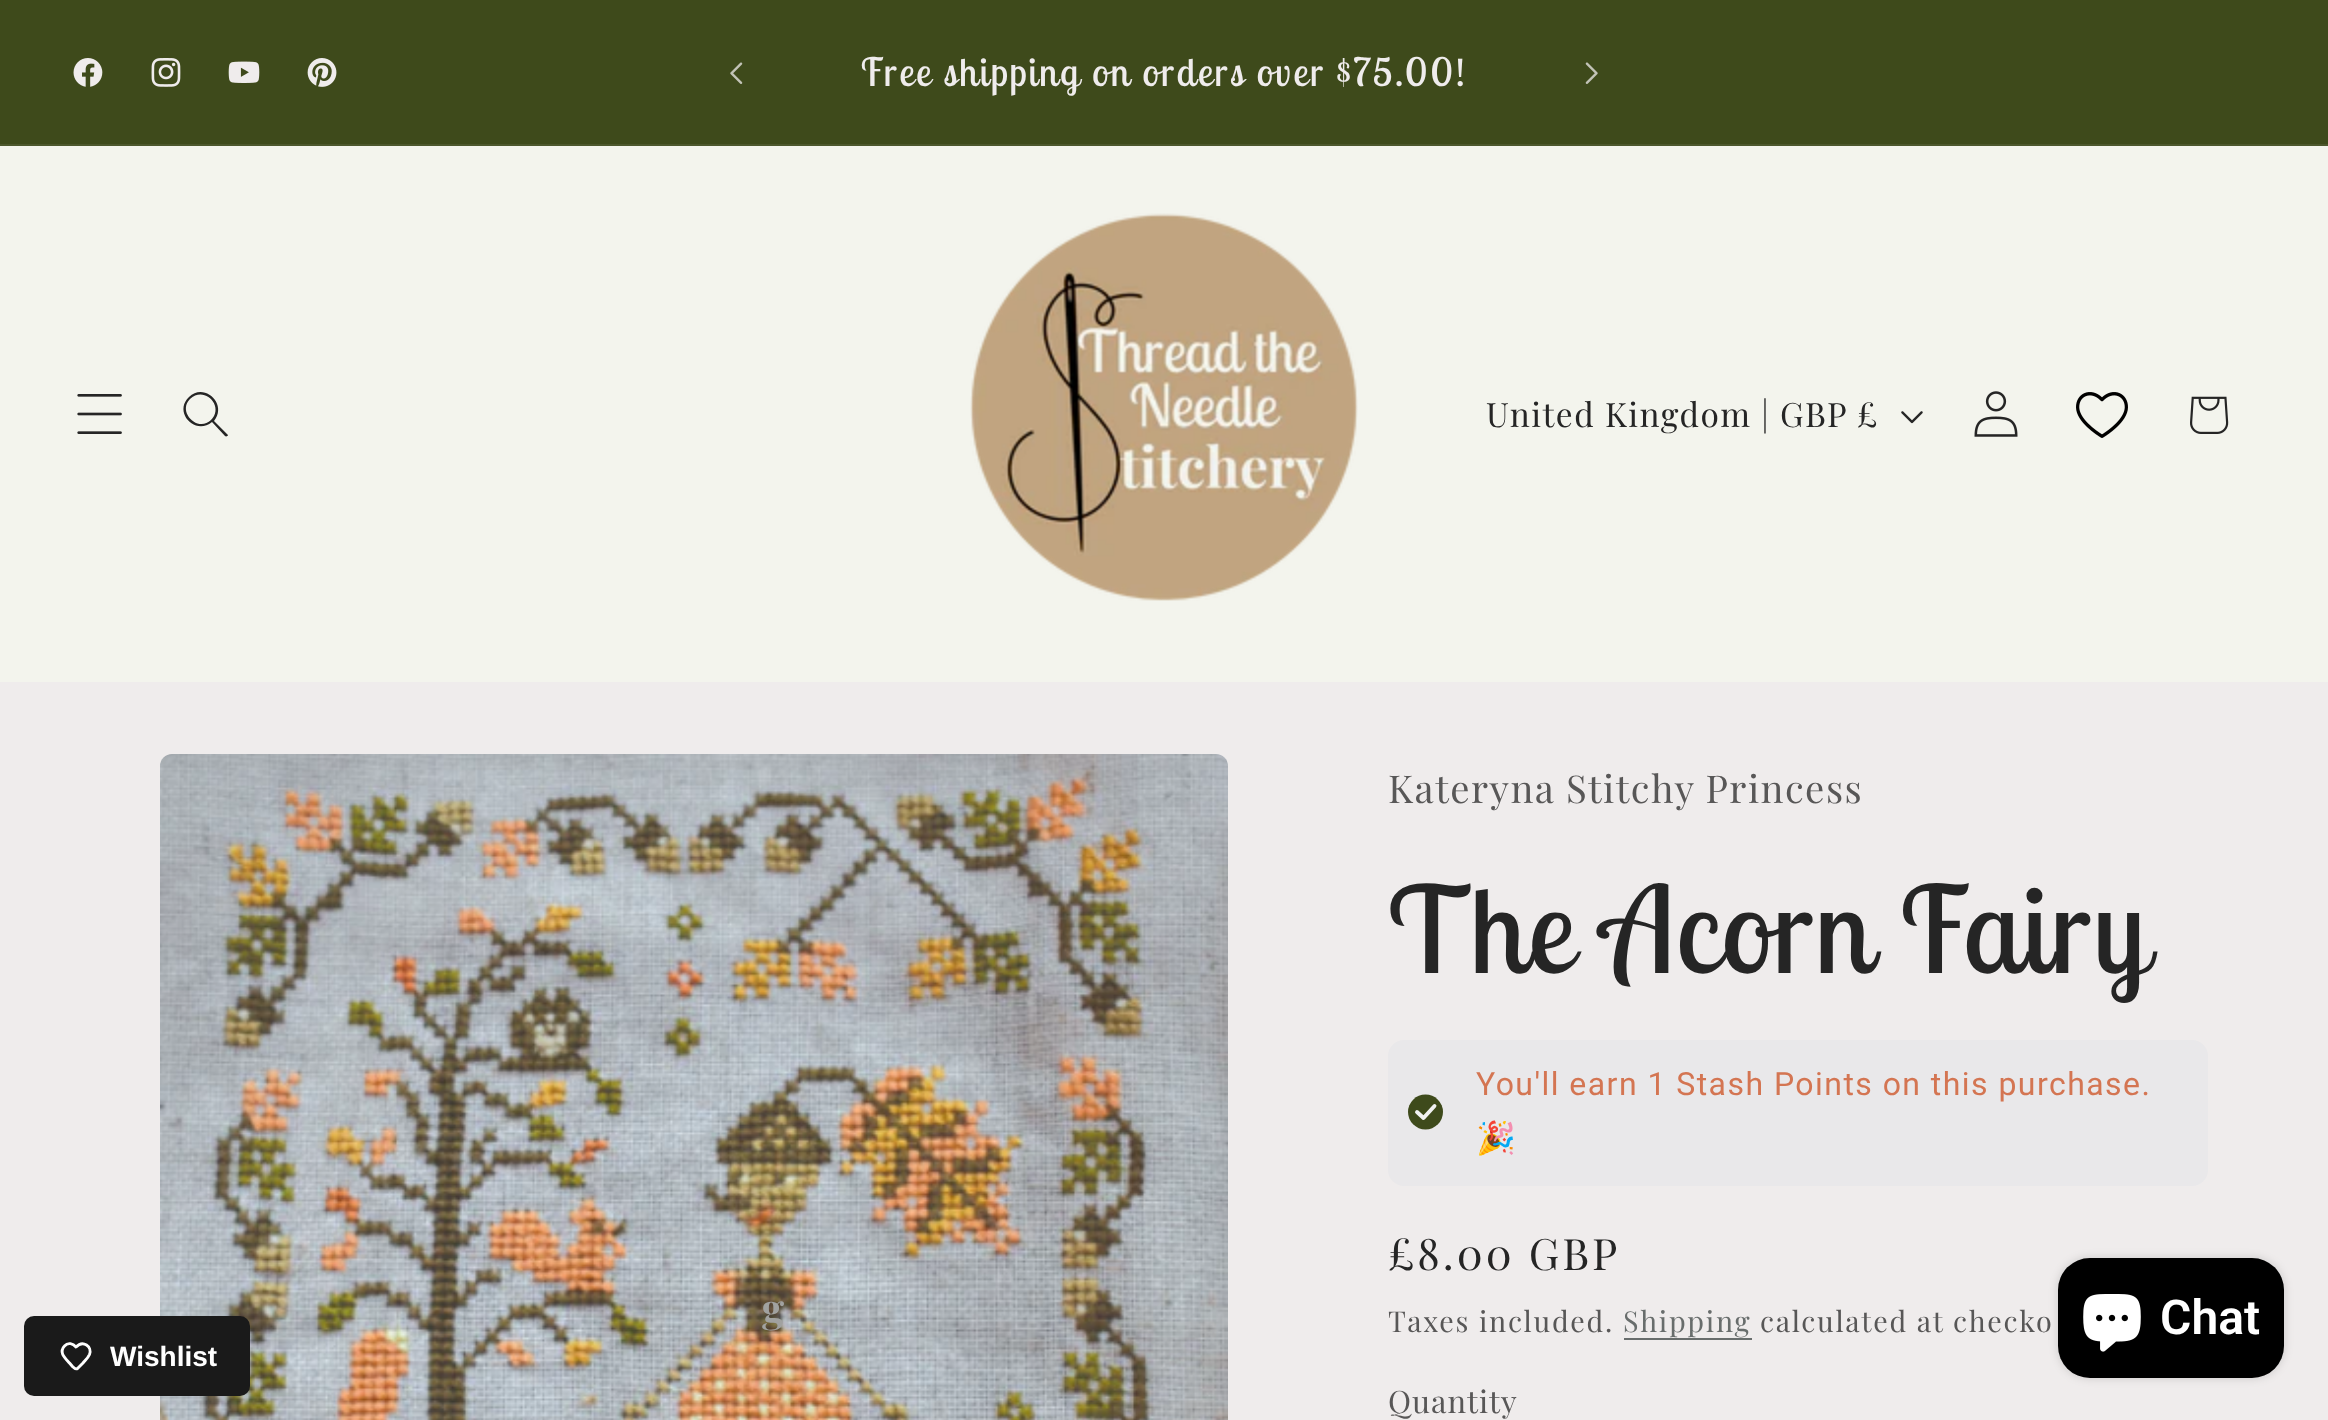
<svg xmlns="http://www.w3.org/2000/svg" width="2328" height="1420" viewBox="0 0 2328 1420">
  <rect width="100%" height="100%" fill="rgb(239,236,236)"/>
  <rect x="0" y="0" width="2328" height="144" fill="rgb(62,74,27)"/>
  <rect x="0" y="144" width="2328" height="2" fill="rgb(76,87,44)"/>
  <image x="73" y="58" width="30" height="29" href="pic1.png"/>
  <image x="151" y="58" width="30" height="29" href="pic2.png"/>
  <image x="228" y="61" width="32" height="22" href="pic3.png"/>
  <image x="307" y="58" width="30" height="29" href="pic4.png"/>
  <image x="730" y="62" width="13" height="22" href="pic5.png"/>
  <text x="861" y="86" font-family="Lobster Two" font-size="39" letter-spacing="2.4" fill="rgb(239,236,236)">Free shipping on orders over $75.00!</text>
  <image x="1585" y="62" width="13" height="22" href="pic6.png"/>
  <rect x="0" y="146" width="2328" height="536" fill="rgb(243,244,237)"/>
  <image x="77" y="394" width="45" height="40" href="pic7.png"/>
  <path d="M211 420C198 433 177 412 190 399C204 385 225 406 211 420M212 422C195 436 173 412 189 397C204 382 228 404 214 421L228 435C228 436 226 437 225 436Z" fill="rgb(37,37,37)" fill-rule="evenodd"/>
  <image x="970" y="213" width="388" height="388" href="pic8.png"/>
  <g font-family="Playfair Display" font-size="33.5" letter-spacing="1.45" fill="rgb(37,37,37)">
    <text x="1486" y="427">United Kingdom |</text>
    <text x="1780" y="427">GBP £</text>
  </g>
  <image x="1901" y="411" width="22" height="13" href="pic9.png"/>
  <image x="1974" y="391" width="44" height="46" href="pic10.png"/>
  <image x="2076" y="392" width="52" height="46" href="pic11.png"/>
  <image x="2190" y="396" width="39" height="38" href="pic12.png"/>
  <image x="160" y="754" width="1068" height="666" href="pic13.png"/>
  <text x="762" y="1323" font-family="Playfair Display" font-size="40" font-weight="bold" letter-spacing="1.45" fill="rgb(161,162,160)">g</text>
  <rect x="24" y="1316" width="226" height="80" rx="10" fill="rgb(26,26,26)"/>
  <path d="M64.5 1346C68 1342 73 1343.5 76 1347C83 1339.5 92.5 1346.5 89.5 1354.5C88 1358 85 1360.5 83 1363L77.5 1368.5C75.5 1370 74 1367.5 72.5 1366.5L69.5 1363C65 1358 58.5 1352.5 64.5 1346Z" fill="none" stroke="rgb(255,255,255)" stroke-width="2.9" stroke-linecap="round" stroke-linejoin="round"/>
  <text x="110" y="1366" font-family="Liberation Sans" font-size="28" font-weight="bold" fill="rgb(255,255,255)">Wishlist</text>
  <text x="1388" y="803" font-family="Playfair Display" font-size="38.4" letter-spacing="1.45" fill="rgb(88,87,87)">Kateryna Stitchy Princess</text>
  <text x="1388" y="973" font-family="Lobster Two" font-size="120" letter-spacing="1.75" fill="rgb(37,37,37)">The Acorn Fairy</text>
  <rect x="1388" y="1040" width="820" height="146" rx="16" fill="rgb(233,232,234)"/>
  <circle cx="1425.5" cy="1112" r="17.5" fill="rgb(62,74,27)"/>
  <path d="M1417 1112L1423.5 1118L1434.5 1106" fill="none" stroke="rgb(241,241,241)" stroke-width="3.9" stroke-linecap="round" stroke-linejoin="round"/>
  <text x="1476" y="1095" font-family="Roboto" font-size="32" letter-spacing="1.45" fill="rgb(212,117,82)">You'll earn 1 Stash Points on this purchase.</text>
  <text x="1476" y="1149" font-family="Noto Color Emoji" font-size="32" letter-spacing="1.45" fill="rgb(212,117,82)">🎉</text>
  <text x="1388" y="1270" font-family="Playfair Display" font-size="43.25" letter-spacing="3.1" fill="rgb(37,37,37)">£8.00 GBP</text>
  <text x="1388" y="1332" font-family="Playfair Display" font-size="28.75" letter-spacing="1.7" fill="rgb(88,87,87)">Taxes included.</text>
  <text x="1623" y="1332" font-family="Playfair Display" font-size="28.75" letter-spacing="1.7" fill="rgb(104,109,108)">Shipping</text>
  <rect x="1624" y="1338" width="128" height="2" fill="rgb(104,109,108)"/>
  <text x="1760" y="1332" font-family="Playfair Display" font-size="28.75" letter-spacing="1.7" fill="rgb(88,87,87)">calculated at checko</text>
  <text x="1388" y="1413" font-family="Playfair Display" font-size="31" letter-spacing="1" fill="rgb(88,87,87)">Quantity</text>
  <rect x="2058" y="1258" width="226" height="120" rx="32" fill="rgba(0,0,0,0.15)" filter="blur(5px)"/>
  <rect x="2058" y="1258" width="226" height="120" rx="32" fill="rgb(0,0,0)"/>
  <image x="2083" y="1294" width="58" height="58" href="pic14.png"/>
  <text x="2160" y="1334" font-family="Roboto" font-size="48" font-weight="600" fill="rgb(255,255,255)">Chat</text>
</svg>
